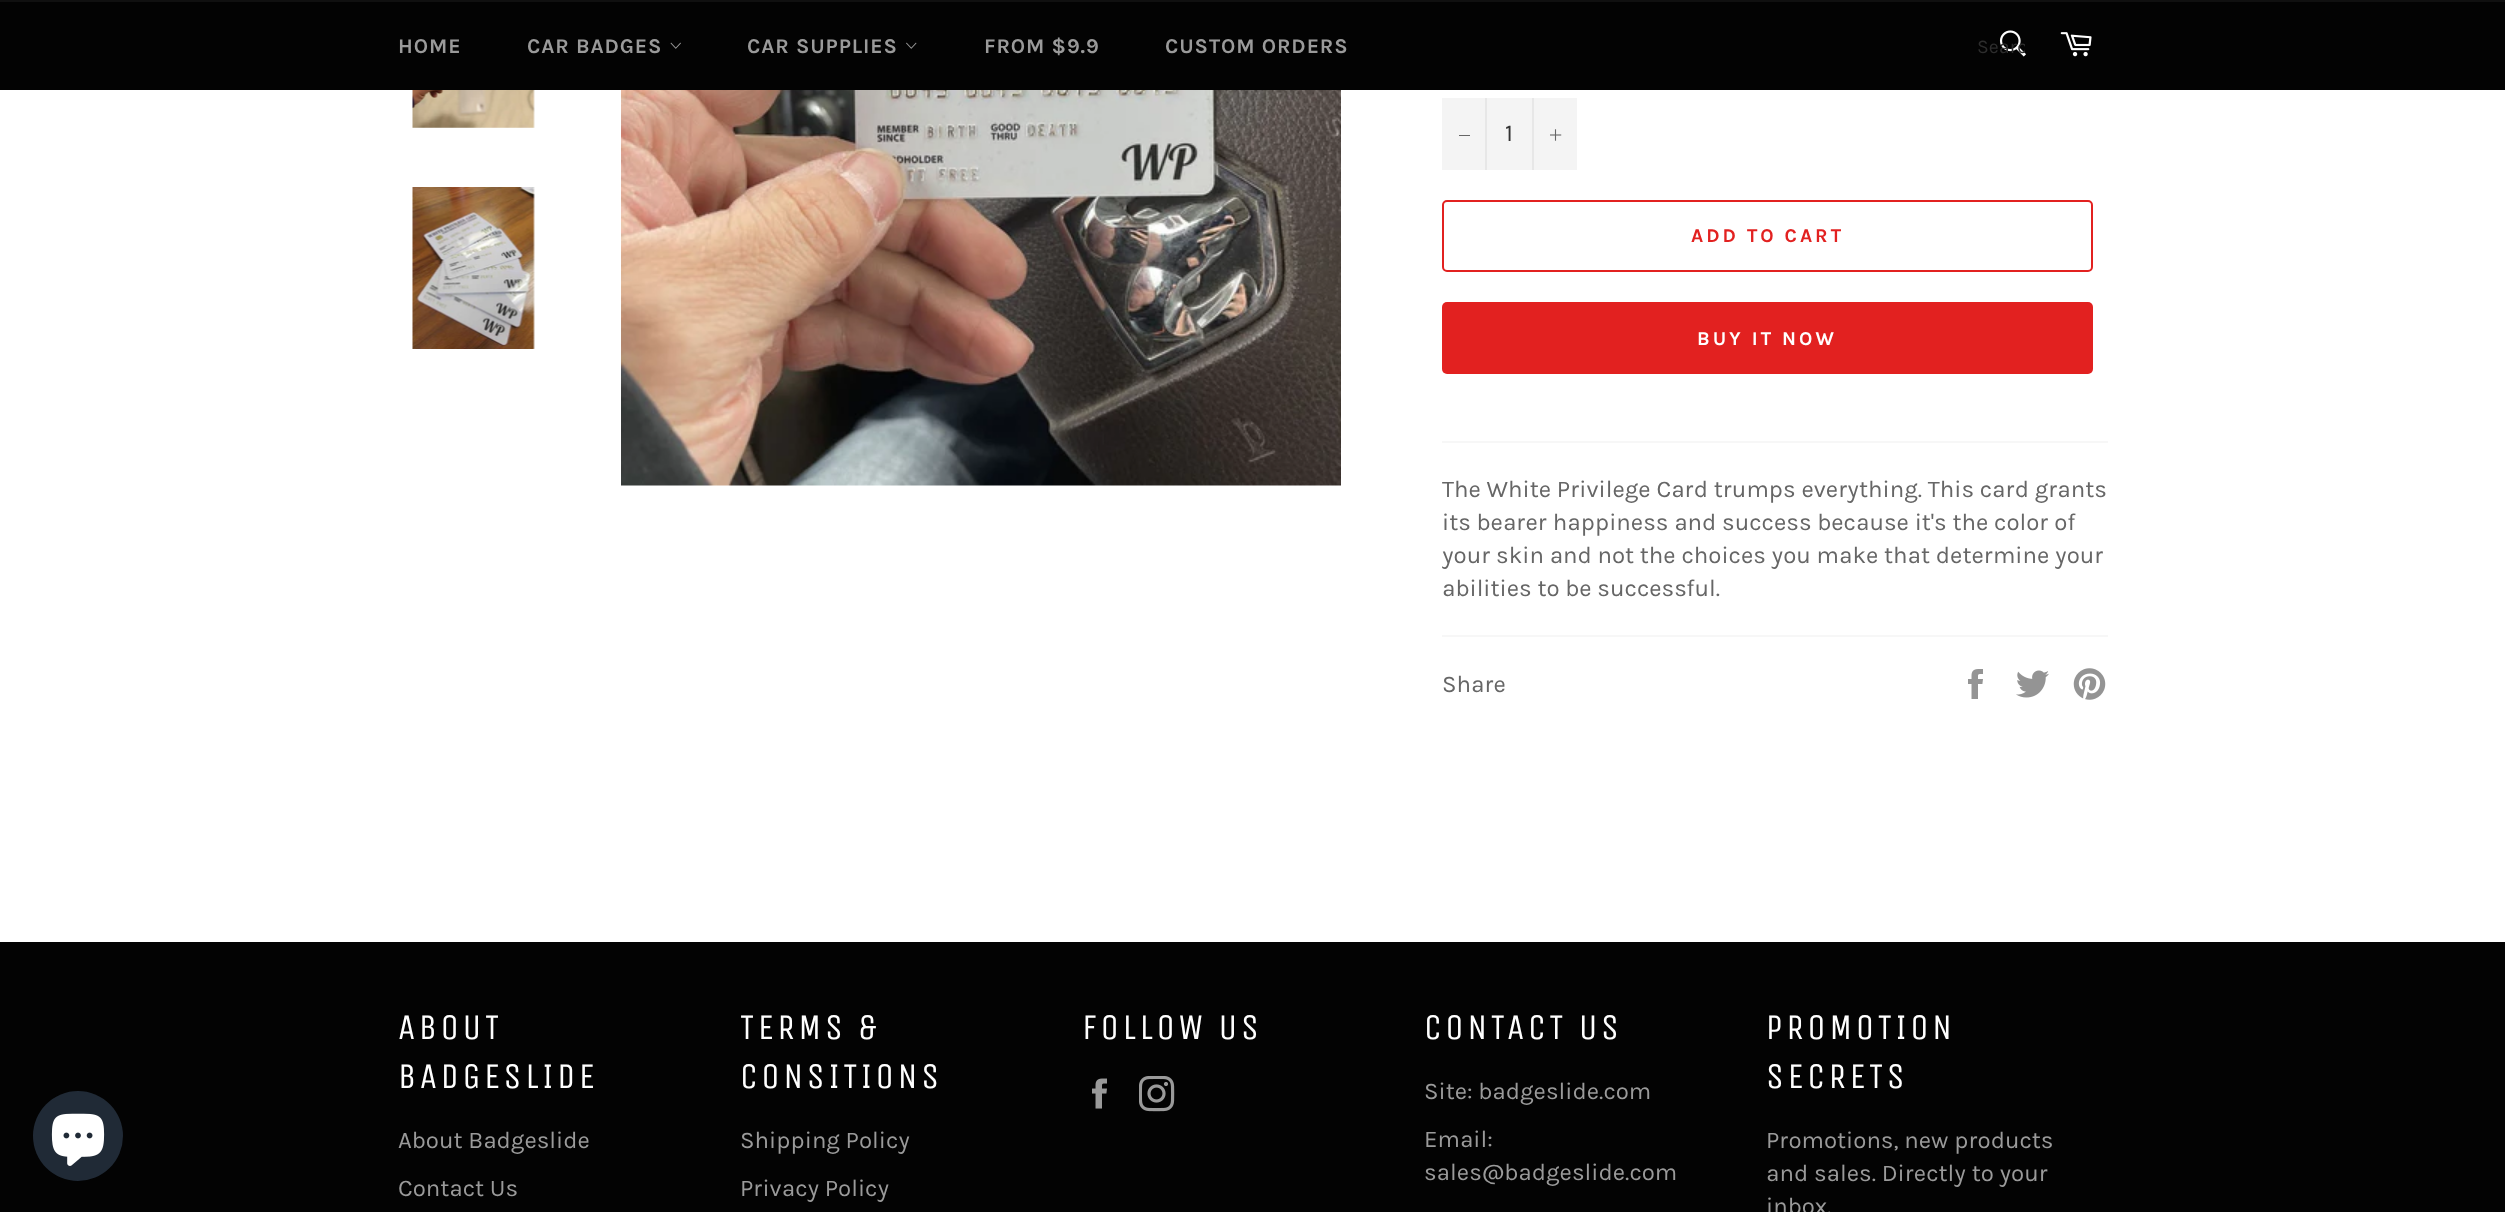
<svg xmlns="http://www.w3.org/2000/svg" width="2505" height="1212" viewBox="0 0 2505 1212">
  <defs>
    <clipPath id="clip1"><rect x="1977" y="35" width="48" height="22"/></clipPath>
  </defs>
  <rect width="100%" height="100%" fill="rgb(255,255,255)"/>
  <rect x="0" y="2" width="2505" height="88" fill="rgb(3,3,3)"/>
  <rect x="0" y="0" width="2505" height="2" fill="rgb(16,16,16)"/>
  <g font-family="Karla" font-size="21" font-weight="bold" letter-spacing="0.9" fill="rgb(154,154,154)">
    <text x="398" y="53">HOME</text>
    <text x="527" y="53">CAR BADGES</text>
  </g>
  <image x="670" y="42" width="11" height="7" href="pic1.png"/>
  <text x="747" y="53" font-family="Karla" font-size="21" font-weight="bold" letter-spacing="0.9" fill="rgb(154,154,154)">CAR SUPPLIES</text>
  <image x="906" y="42" width="11" height="7" href="pic2.png"/>
  <g font-family="Karla" font-size="21" font-weight="bold" letter-spacing="0.9" fill="rgb(154,154,154)">
    <text x="984" y="53">FROM $9.9</text>
    <text x="1165" y="53">CUSTOM ORDERS</text>
  </g>
  <image x="1999" y="30" width="27" height="27" href="pic3.png"/>
  <g clip-path="url(#clip1)">
    <text x="1977" y="53" font-family="Karla" font-size="19.5" fill="rgb(45,45,45)">Searc</text>
  </g>
  <image x="2060" y="32" width="32" height="25" href="pic4.png"/>
  <rect x="0" y="942" width="2505" height="270" fill="rgb(3,3,3)"/>
  <circle cx="78" cy="1136" r="45" fill="rgb(32,42,54)"/>
  <image x="51" y="1113" width="54" height="53" href="pic5.png"/>
  <image x="412" y="90" width="123" height="38" href="pic6.png"/>
  <image x="412" y="187" width="123" height="162" href="pic7.png"/>
  <image x="621" y="90" width="720" height="396" href="pic8.png"/>
  <rect x="1442" y="98" width="135" height="72" fill="rgb(244,244,244)"/>
  <rect x="1485" y="98" width="2" height="72" fill="rgb(231,231,231)"/>
  <rect x="1459" y="135" width="11" height="1" fill="rgb(102,102,102)"/>
  <text x="1505" y="141" font-family="Karla" font-size="24" fill="rgb(51,51,51)">1</text>
  <rect x="1532" y="98" width="2" height="72" fill="rgb(231,231,231)"/>
  <image x="1550" y="129" width="12" height="12" href="pic9.png"/>
  <rect x="1443" y="201" width="649" height="70" rx="4" fill="none" stroke="rgb(226,33,32)" stroke-width="2"/>
  <text x="1691" y="242" font-family="Karla" font-size="19.5" font-weight="bold" letter-spacing="3" fill="rgb(226,33,32)">ADD TO CART</text>
  <rect x="1442" y="302" width="651" height="72" rx="5" fill="rgb(226,33,32)"/>
  <text x="1697" y="345" font-family="Karla" font-size="19.5" font-weight="bold" letter-spacing="3" fill="rgb(255,255,255)">BUY IT NOW</text>
  <rect x="1442" y="441" width="666" height="2" fill="rgb(247,247,247)"/>
  <g font-family="Karla" font-size="24" fill="rgb(102,102,102)">
    <text>
      <tspan x="1442" y="497">The White Privilege Card trumps everything. This card grants</tspan>
      <tspan x="1442" y="530">its bearer happiness and success because it's the color of</tspan>
      <tspan x="1442" y="563">your skin and not the choices you make that determine your</tspan>
      <tspan x="1442" y="596">abilities to be successful.</tspan>
    </text>
  </g>
  <rect x="1442" y="635" width="666" height="2" fill="rgb(247,247,247)"/>
  <text x="1442" y="692" font-family="Karla" font-size="24" fill="rgb(102,102,102)">Share</text>
  <image x="1968" y="669" width="15" height="30" href="pic10.png"/>
  <image x="2016" y="670" width="33" height="28" href="pic11.png"/>
  <image x="2073" y="668" width="33" height="32" href="pic12.png"/>
  <g font-family="Unica One" font-size="36" letter-spacing="3.6" fill="rgb(255,255,255)">
    <text>
      <tspan x="398" y="1039">ABOUT</tspan>
      <tspan x="398" y="1088">BADGESLIDE</tspan>
    </text>
  </g>
  <g font-family="Karla" font-size="24" fill="rgb(154,154,154)">
    <text x="398" y="1148">About Badgeslide</text>
    <text x="398" y="1196">Contact Us</text>
  </g>
  <g font-family="Unica One" font-size="36" letter-spacing="3.6" fill="rgb(255,255,255)">
    <text>
      <tspan x="740" y="1039">TERMS &amp;</tspan>
      <tspan x="740" y="1088">CONSITIONS</tspan>
    </text>
  </g>
  <g font-family="Karla" font-size="24" fill="rgb(154,154,154)">
    <text x="740" y="1148">Shipping Policy</text>
    <text x="740" y="1196">Privacy Policy</text>
  </g>
  <text x="1082" y="1039" font-family="Unica One" font-size="36" letter-spacing="3.6" fill="rgb(255,255,255)">FOLLOW US</text>
  <image x="1092" y="1078" width="15" height="31" href="pic13.png"/>
  <image x="1139" y="1076" width="36" height="36" href="pic14.png"/>
  <text x="1424" y="1039" font-family="Unica One" font-size="36" letter-spacing="3.6" fill="rgb(255,255,255)">CONTACT US</text>
  <g font-family="Karla" font-size="24" fill="rgb(154,154,154)">
    <text x="1424" y="1099">Site: badgeslide.com</text>
    <text>
      <tspan x="1424" y="1147">Email:</tspan>
      <tspan x="1424" y="1180">sales@badgeslide.com</tspan>
    </text>
  </g>
  <g font-family="Unica One" font-size="36" letter-spacing="3.6" fill="rgb(255,255,255)">
    <text>
      <tspan x="1766" y="1039">PROMOTION</tspan>
      <tspan x="1766" y="1088">SECRETS</tspan>
    </text>
  </g>
  <g font-family="Karla" font-size="24" fill="rgb(154,154,154)">
    <text>
      <tspan x="1766" y="1148">Promotions, new products</tspan>
      <tspan x="1766" y="1181">and sales. Directly to your</tspan>
      <tspan x="1766" y="1214">inbox.</tspan>
    </text>
  </g>
</svg>
